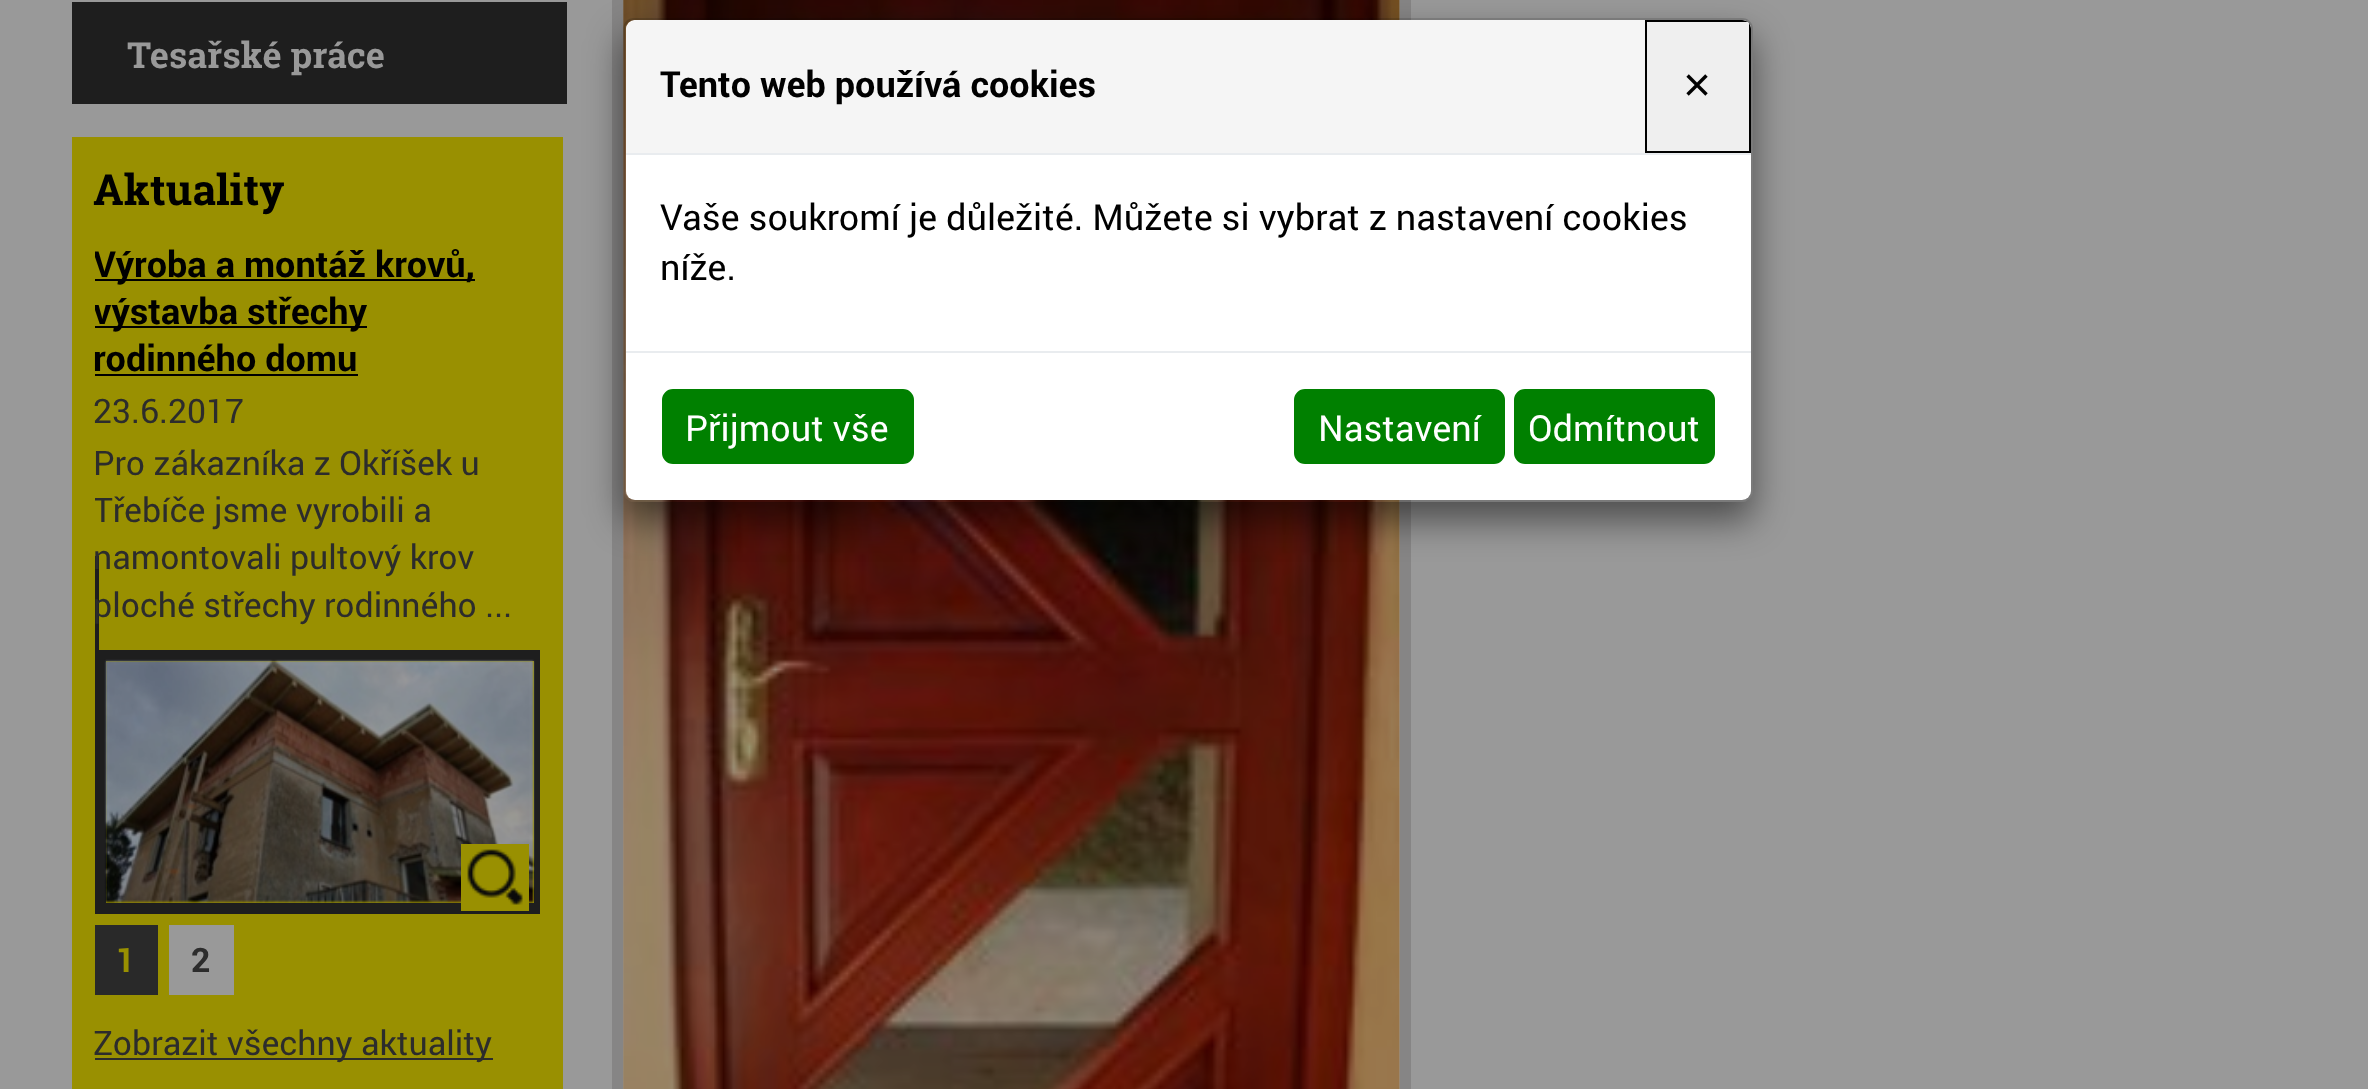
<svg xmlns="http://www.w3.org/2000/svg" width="2368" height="1089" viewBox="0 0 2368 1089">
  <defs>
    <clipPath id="clip1"><rect x="95" y="239" width="445" height="675"/></clipPath>
    <clipPath id="clip2"><path d="M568 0H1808V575H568ZM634 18H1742C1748 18 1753 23 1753 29V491C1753 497 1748 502 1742 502H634C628 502 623 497 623 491V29C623 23 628 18 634 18Z" clip-rule="evenodd"/></clipPath>
  </defs>
  <rect width="100%" height="100%" fill="rgb(153,153,153)"/>
  <rect x="72" y="2" width="495" height="102" fill="rgb(30,30,30)"/>
  <text x="127" y="68" font-family="Roboto Slab" font-size="36" font-weight="bold" fill="rgb(153,153,153)">Tesařské práce</text>
  <rect x="72" y="137" width="491" height="952" fill="rgb(153,144,1)"/>
  <text x="93" y="205" font-family="Roboto Slab" font-size="42.75" font-weight="bold" fill="rgb(0,0,0)">Aktuality</text>
  <rect x="95" y="279" width="380" height="2" fill="rgb(0,0,0)"/>
  <g clip-path="url(#clip1)">
    <text x="93" y="277" font-family="Roboto" font-size="36" font-weight="bold" fill="rgb(0,0,0)">Výroba a montáž krovů,</text>
  </g>
  <rect x="95" y="326" width="272" height="2" fill="rgb(0,0,0)"/>
  <g clip-path="url(#clip1)">
    <text x="93" y="324" font-family="Roboto" font-size="36" font-weight="bold" fill="rgb(0,0,0)">výstavba střechy</text>
  </g>
  <text x="93" y="371" font-family="Roboto" font-size="36" font-weight="bold" fill="rgb(0,0,0)">rodinného domu</text>
  <rect x="95" y="374" width="263" height="2" fill="rgb(0,0,0)"/>
  <g font-family="Roboto" font-size="33.75" fill="rgb(44,44,44)">
    <text>
      <tspan x="93" y="423">23.6.2017</tspan>
      <tspan x="93" y="475">Pro zákazníka z Okříšek u</tspan>
    </text>
  </g>
  <g clip-path="url(#clip1)">
    <text x="93" y="522" font-family="Roboto" font-size="33.75" fill="rgb(44,44,44)">Třebíče jsme vyrobili a</text>
    <rect x="-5.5" y="561.5" width="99" height="252" fill="none" stroke="rgb(30,30,30)" stroke-width="11"/>
  </g>
  <g font-family="Roboto" font-size="33.75" fill="rgb(44,44,44)">
    <text>
      <tspan x="93" y="569">namontovali pultový krov</tspan>
      <tspan x="93" y="617">ploché střechy rodinného ...</tspan>
    </text>
  </g>
  <g clip-path="url(#clip1)">
    <rect x="100.5" y="655.5" width="439" height="253" fill="none" stroke="rgb(30,30,30)" stroke-width="11"/>
  </g>
  <image x="104" y="659" width="431" height="244" href="pic1.png"/>
  <rect x="461" y="844" width="68" height="67" fill="rgb(153,144,1)"/>
  <image x="467" y="849" width="56" height="56" href="pic2.png"/>
  <rect x="95" y="925" width="63" height="70" fill="rgb(41,41,41)"/>
  <text x="116" y="972" font-family="Roboto" font-size="33.75" font-weight="bold" fill="rgb(153,144,1)">1</text>
  <rect x="169" y="925" width="65" height="70" fill="rgb(153,153,153)"/>
  <text x="191" y="972" font-family="Roboto" font-size="33.75" font-weight="bold" fill="rgb(44,44,44)">2</text>
  <rect x="95" y="1058" width="398" height="2" fill="rgb(44,44,44)"/>
  <text x="93" y="1055" font-family="Roboto" font-size="33.75" fill="rgb(44,44,44)">Zobrazit všechny aktuality</text>
  <rect x="617.5" y="-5.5" width="788" height="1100" fill="none" stroke="rgb(134,133,133)" stroke-width="11"/>
  <image x="623" y="0" width="777" height="1089" href="pic3.png"/>
  <g clip-path="url(#clip2)">
    <rect x="623" y="36" width="1130" height="484" rx="11" fill="rgba(0,0,0,0.5)" filter="blur(18px)"/>
  </g>
  <rect x="626" y="20" width="1125" height="480" rx="9" fill="rgb(255,255,255)"/>
  <rect x="624" y="19" width="1128" height="482" rx="10" fill="none" stroke="rgba(0,0,0,0.2)" stroke-width="2"/>
  <path d="M637 20H1740C1746 20 1751 25 1751 31V155H626V31C626 25 631 20 637 20Z" fill="rgb(245,245,245)"/>
  <rect x="626" y="153" width="1125" height="2" fill="rgb(233,236,239)"/>
  <text x="660" y="97" font-family="Roboto" font-size="36" font-weight="bold" fill="rgb(0,0,0)">Tento web používá cookies</text>
  <path d="M1645 20H1742C1747 20 1751 24 1751 29V153H1645Z" fill="rgb(239,239,239)"/>
  <path d="M1645 20V153H1751V29C1751 27 1750 25 1749 23V151H1647V22H1748C1746 21 1744 20 1742 20Z" fill="rgb(0,0,0)"/>
  <text x="1683" y="101" font-family="Liberation Sans" font-size="48" fill="rgb(0,0,0)">×</text>
  <g font-family="Roboto" font-size="36" fill="rgb(0,0,0)">
    <text>
      <tspan x="660" y="230">Vaše soukromí je důležité. Můžete si vybrat z nastavení cookies</tspan>
      <tspan x="660" y="280">níže.</tspan>
    </text>
  </g>
  <rect x="626" y="351" width="1125" height="2" fill="rgb(233,236,239)"/>
  <rect x="663" y="390" width="250" height="73" rx="10" fill="rgb(0,128,0)" stroke="rgb(0,128,0)" stroke-width="2"/>
  <text x="685" y="441" font-family="Roboto" font-size="36" fill="rgb(255,255,255)">Přijmout vše</text>
  <rect x="1295" y="390" width="209" height="73" rx="10" fill="rgb(0,128,0)" stroke="rgb(0,128,0)" stroke-width="2"/>
  <text x="1318" y="441" font-family="Roboto" font-size="36" fill="rgb(255,255,255)">Nastavení</text>
  <rect x="1515" y="390" width="199" height="73" rx="10" fill="rgb(0,128,0)" stroke="rgb(0,128,0)" stroke-width="2"/>
  <text x="1528" y="441" font-family="Roboto" font-size="36" fill="rgb(255,255,255)">Odmítnout</text>
</svg>
